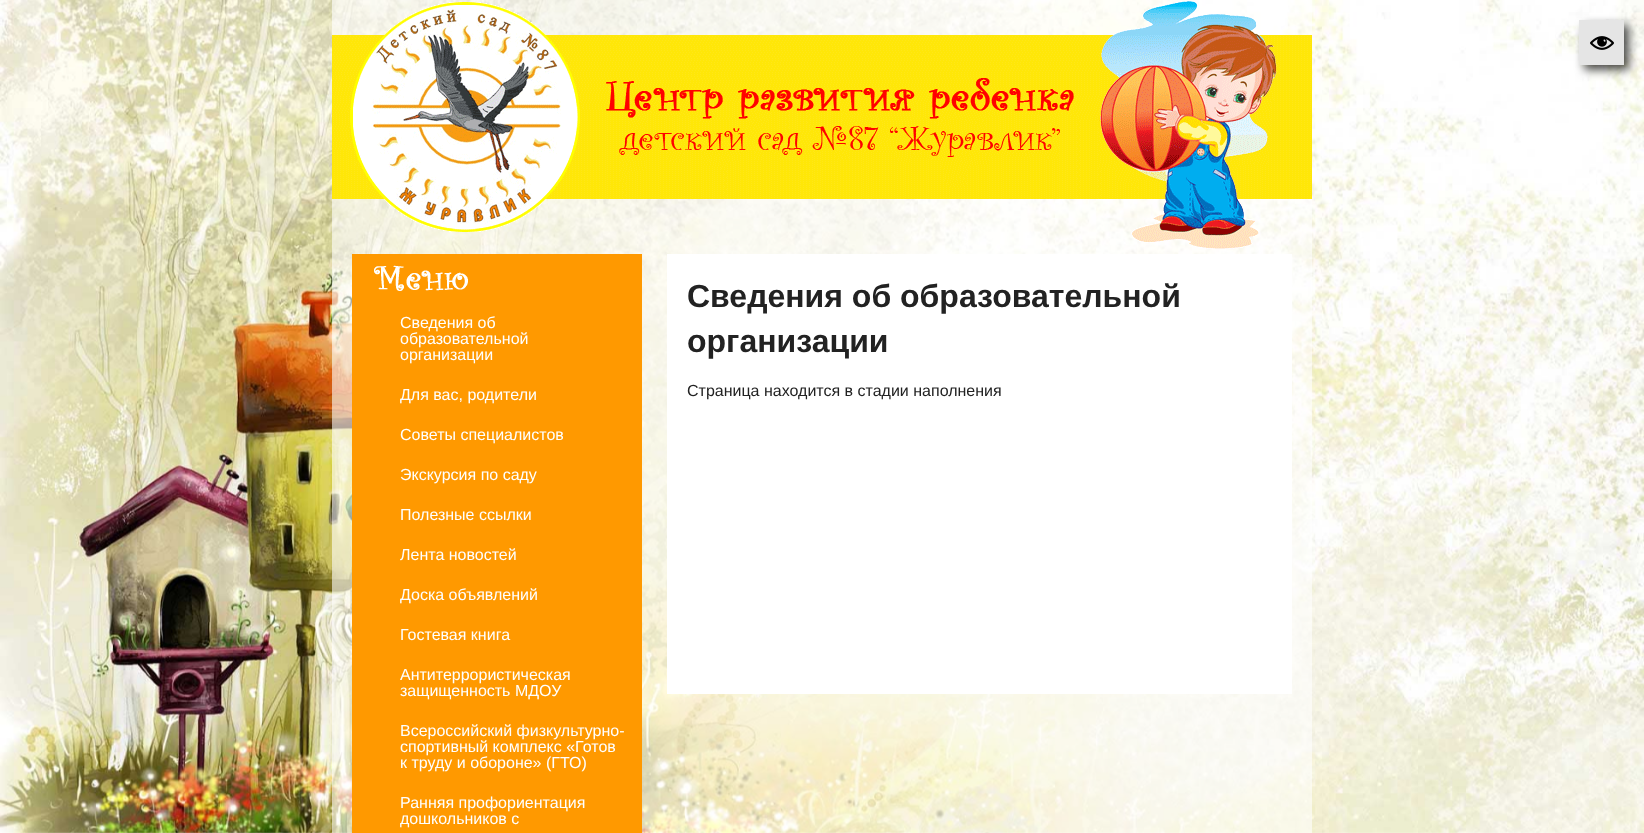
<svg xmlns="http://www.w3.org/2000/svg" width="1644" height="833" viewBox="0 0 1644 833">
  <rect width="100%" height="100%" fill="rgb(255,255,255)"/>
  <image x="0" y="0" width="1644" height="833" href="pic1.png"/>
  <rect x="1584" y="25" width="45" height="45" fill="rgba(0,0,0,0.7)" filter="blur(5px)"/>
  <rect x="1579" y="20" width="45" height="45" fill="rgb(229,229,229)"/>
  <image x="1590" y="36" width="24" height="14" href="pic2.png"/>
  <rect x="332" y="0" width="980" height="833" fill="rgba(255,255,255,0.6)"/>
  <image x="332" y="1" width="980" height="248" href="pic3.png"/>
  <rect x="352" y="254" width="290" height="579" fill="rgb(255,153,0)"/>
  <image x="374" y="265" width="94" height="26" href="pic4.png"/>
  <g font-family="Liberation Sans" font-size="16" fill="rgb(255,255,255)">
    <text>
      <tspan x="400" y="328">Сведения об</tspan>
      <tspan x="400" y="344">образовательной</tspan>
      <tspan x="400" y="360">организации</tspan>
    </text>
    <text x="400" y="400">Для вас, родители</text>
    <text x="400" y="440">Советы специалистов</text>
    <text x="400" y="480">Экскурсия по саду</text>
    <text x="400" y="520">Полезные ссылки</text>
    <text x="400" y="560">Лента новостей</text>
    <text x="400" y="600">Доска объявлений</text>
    <text x="400" y="640">Гостевая книга</text>
    <text>
      <tspan x="400" y="680">Антитеррористическая</tspan>
      <tspan x="400" y="696">защищенность МДОУ</tspan>
    </text>
    <text>
      <tspan x="400" y="736">Всероссийский физкультурно-</tspan>
      <tspan x="400" y="752">спортивный комплекс «Готов</tspan>
      <tspan x="400" y="768">к труду и обороне» (ГТО)</tspan>
    </text>
    <text>
      <tspan x="400" y="808">Ранняя профориентация</tspan>
      <tspan x="400" y="824">дошкольников с</tspan>
    </text>
  </g>
  <rect x="667" y="254" width="625" height="440" fill="rgb(255,255,255)"/>
  <g font-family="Liberation Sans" font-size="32" font-weight="bold" fill="rgb(34,34,34)">
    <text>
      <tspan x="687" y="307">Сведения об образовательной</tspan>
      <tspan x="687" y="352">организации</tspan>
    </text>
  </g>
  <text x="687" y="396" font-family="Liberation Sans" font-size="16" fill="rgb(34,34,34)">Страница находится в стадии наполнения</text>
</svg>
